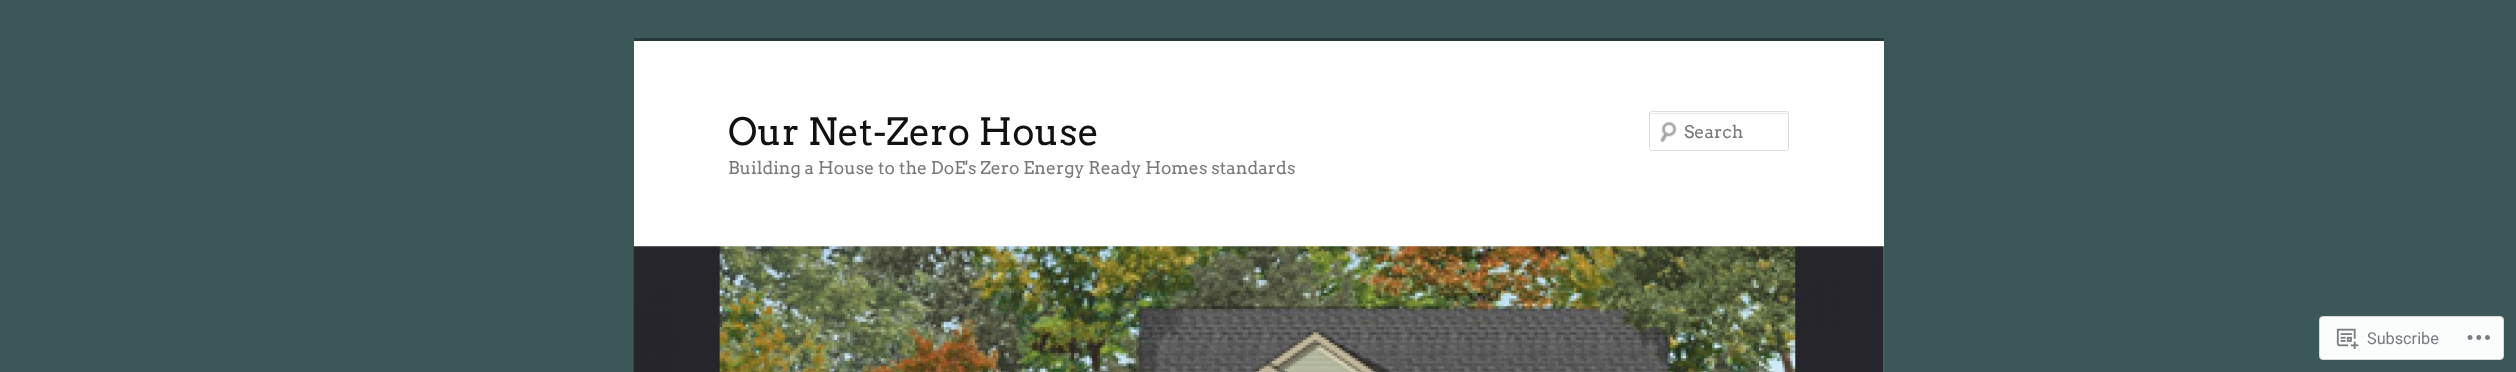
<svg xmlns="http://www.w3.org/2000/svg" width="2516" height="372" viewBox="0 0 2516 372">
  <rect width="100%" height="100%" fill="rgb(60,87,87)"/>
  <rect x="634" y="41" width="1250" height="331" fill="rgb(255,255,255)"/>
  <rect x="634" y="38" width="1250" height="3" fill="rgb(39,57,57)"/>
  <text x="728" y="145" font-family="Arvo" font-size="37.5" fill="rgb(17,17,17)">Our Net-Zero House</text>
  <text x="728" y="174" font-family="Arvo" font-size="17.5" fill="rgb(122,122,122)">Building a House to the DoE's Zero Energy Ready Homes standards</text>
  <image x="1660" y="121" width="17" height="22" href="pic1.png"/>
  <path d="M1651 114H1786C1787 114 1788 114 1788 115C1788 114 1788 113 1787 113H1651C1650 113 1650 114 1650 115Z" fill="rgb(230,230,230)"/>
  <rect x="1649.5" y="111.5" width="139" height="39" rx="2" fill="none" stroke="rgb(221,221,221)"/>
  <text x="1684" y="138" font-family="Arvo" font-size="17.5" fill="rgb(122,122,122)">Search</text>
  <image x="633" y="246" width="1251" height="126" href="pic2.png"/>
  <rect x="2319.5" y="316.5" width="184" height="43" rx="3.5" fill="rgb(251,252,252)" stroke="rgb(217,217,219)"/>
  <image x="2336" y="328" width="23" height="22" href="pic3.png"/>
  <text x="2367" y="344" font-family="Roboto" font-size="16.25" fill="rgb(119,123,129)">Subscribe</text>
  <image x="2467" y="335" width="23" height="5" href="pic4.png"/>
</svg>
